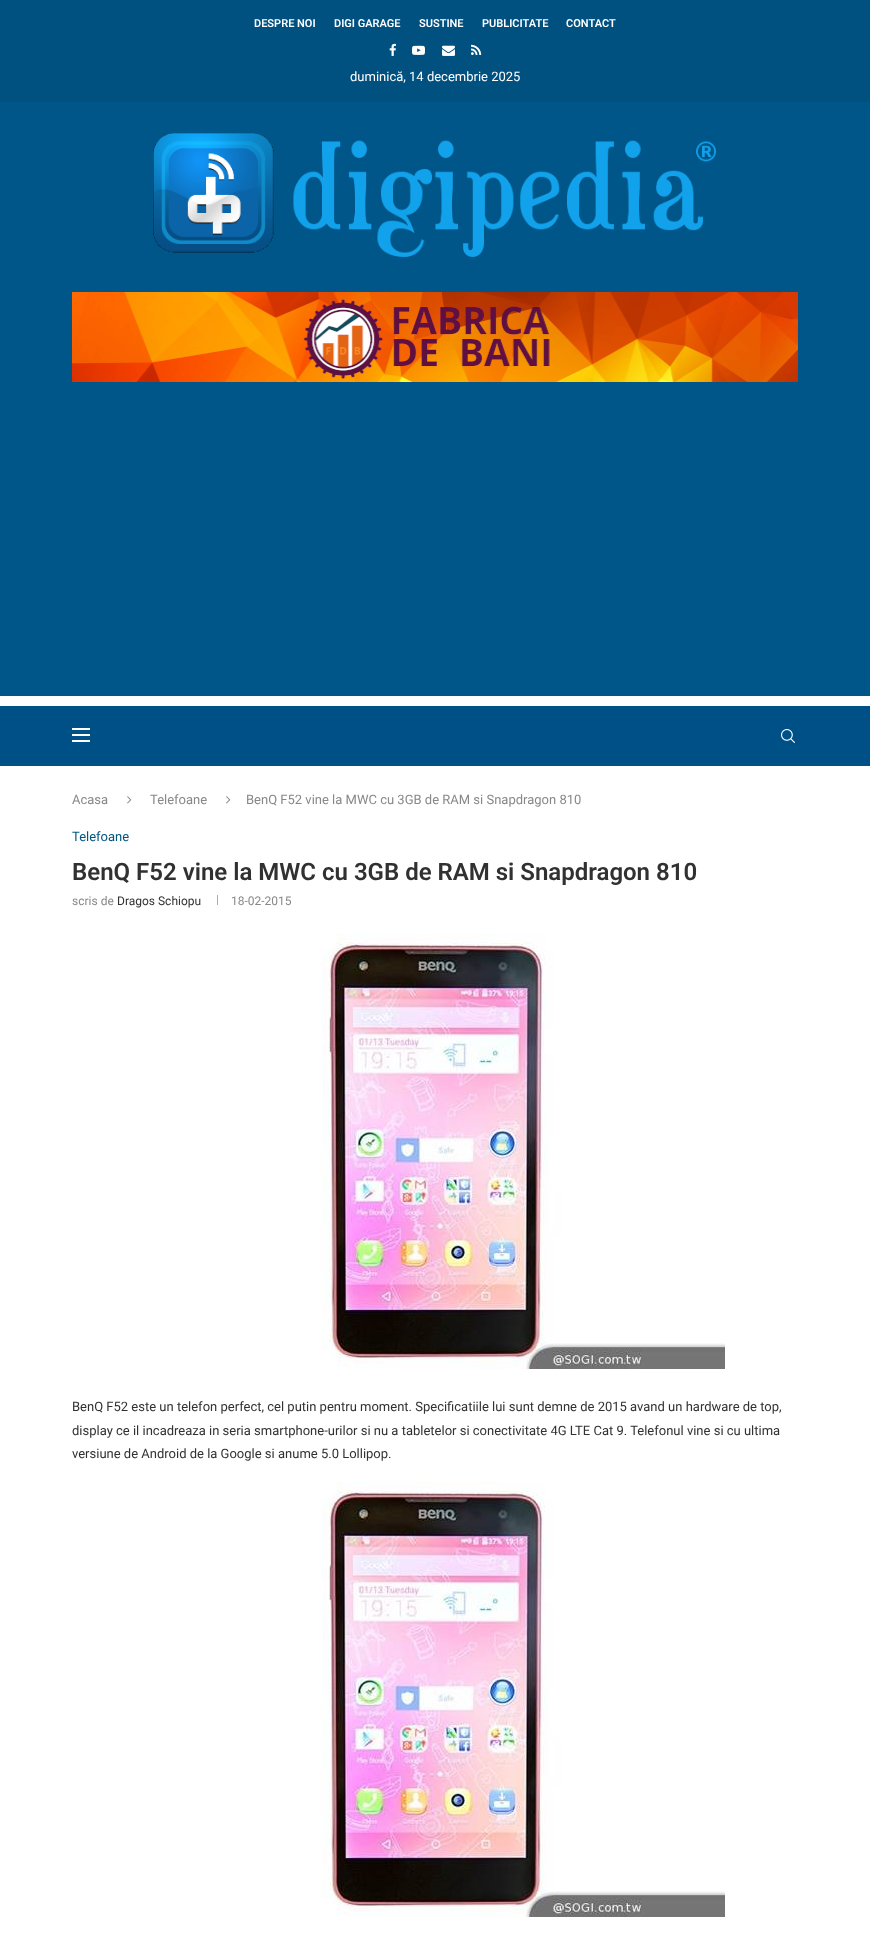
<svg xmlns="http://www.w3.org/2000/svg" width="870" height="1948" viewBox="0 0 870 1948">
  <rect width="100%" height="100%" fill="rgb(255,255,255)"/>
  <rect x="0" y="0" width="870" height="102" fill="rgb(0,80,128)"/>
  <g font-family="Roboto" font-size="11" font-weight="600" fill="rgb(255,255,255)">
    <text x="254" y="27">DESPRE NOI</text>
    <text x="334" y="27">DIGI GARAGE</text>
    <text x="419" y="27">SUSTINE</text>
    <text x="482" y="27">PUBLICITATE</text>
    <text x="566" y="27">CONTACT</text>
  </g>
  <image x="389" y="43" width="7" height="13" href="pic1.png"/>
  <image x="412" y="45" width="13" height="10" href="pic2.png"/>
  <image x="442" y="45" width="13" height="11" href="pic3.png"/>
  <image x="471" y="44" width="11" height="11" href="pic4.png"/>
  <text x="350" y="81" font-family="Roboto" font-size="13" fill="rgb(255,255,255)">duminică, 14 decembrie 2025</text>
  <rect x="0" y="102" width="870" height="594" fill="rgb(0,86,136)"/>
  <image x="153" y="133" width="563" height="124" href="pic5.png"/>
  <image x="72" y="292" width="726" height="90" href="pic6.png"/>
  <rect x="0" y="706" width="870" height="60" fill="rgb(0,80,136)"/>
  <rect x="72" y="728" width="18" height="2" fill="rgb(255,255,255)"/>
  <rect x="72" y="734" width="18" height="2" fill="rgb(255,255,255)"/>
  <rect x="72" y="740" width="18" height="2" fill="rgb(255,255,255)"/>
  <image x="781" y="729" width="14" height="14" href="pic7.png"/>
  <text x="72" y="804" font-family="Roboto" font-size="13" fill="rgb(136,136,136)">Acasa</text>
  <image x="127" y="796" width="5" height="8" href="pic8.png"/>
  <text x="150" y="804" font-family="Roboto" font-size="13" fill="rgb(136,136,136)">Telefoane</text>
  <image x="226" y="796" width="5" height="8" href="pic8.png"/>
  <text x="246" y="804" font-family="Roboto" font-size="13" fill="rgb(136,136,136)">BenQ F52 vine la MWC cu 3GB de RAM si Snapdragon 810</text>
  <text x="72" y="841" font-family="Roboto" font-size="13" fill="rgb(0,86,128)">Telefoane</text>
  <text x="72" y="880" font-family="Roboto" font-size="24" font-weight="600" fill="rgb(49,49,49)">BenQ F52 vine la MWC cu 3GB de RAM si Snapdragon 810</text>
  <text x="72" y="905" font-family="Roboto" font-size="12" fill="rgb(136,136,136)">scris de</text>
  <text x="117" y="905" font-family="Roboto" font-size="12" fill="rgb(49,49,49)">Dragos Schiopu</text>
  <rect x="217" y="895" width="1" height="10" fill="rgb(172,172,172)"/>
  <text x="231" y="905" font-family="Roboto" font-size="12" fill="rgb(136,136,136)">18-02-2015</text>
  <image x="321" y="934" width="404" height="435" href="pic9.png"/>
  <g font-family="Roboto" font-size="13" fill="rgb(49,49,49)">
    <text>
      <tspan x="72" y="1411">BenQ F52 este un telefon perfect, cel putin pentru moment. Specificatiile lui sunt demne de 2015 avand un hardware de top,</tspan>
      <tspan x="72" y="1435">display ce il incadreaza in seria smartphone-urilor si nu a tabletelor si conectivitate 4G LTE Cat 9. Telefonul vine si cu ultima</tspan>
      <tspan x="72" y="1458">versiune de Android de la Google si anume 5.0 Lollipop.</tspan>
    </text>
  </g>
  <image x="321" y="1482" width="404" height="435" href="pic9.png"/>
</svg>
